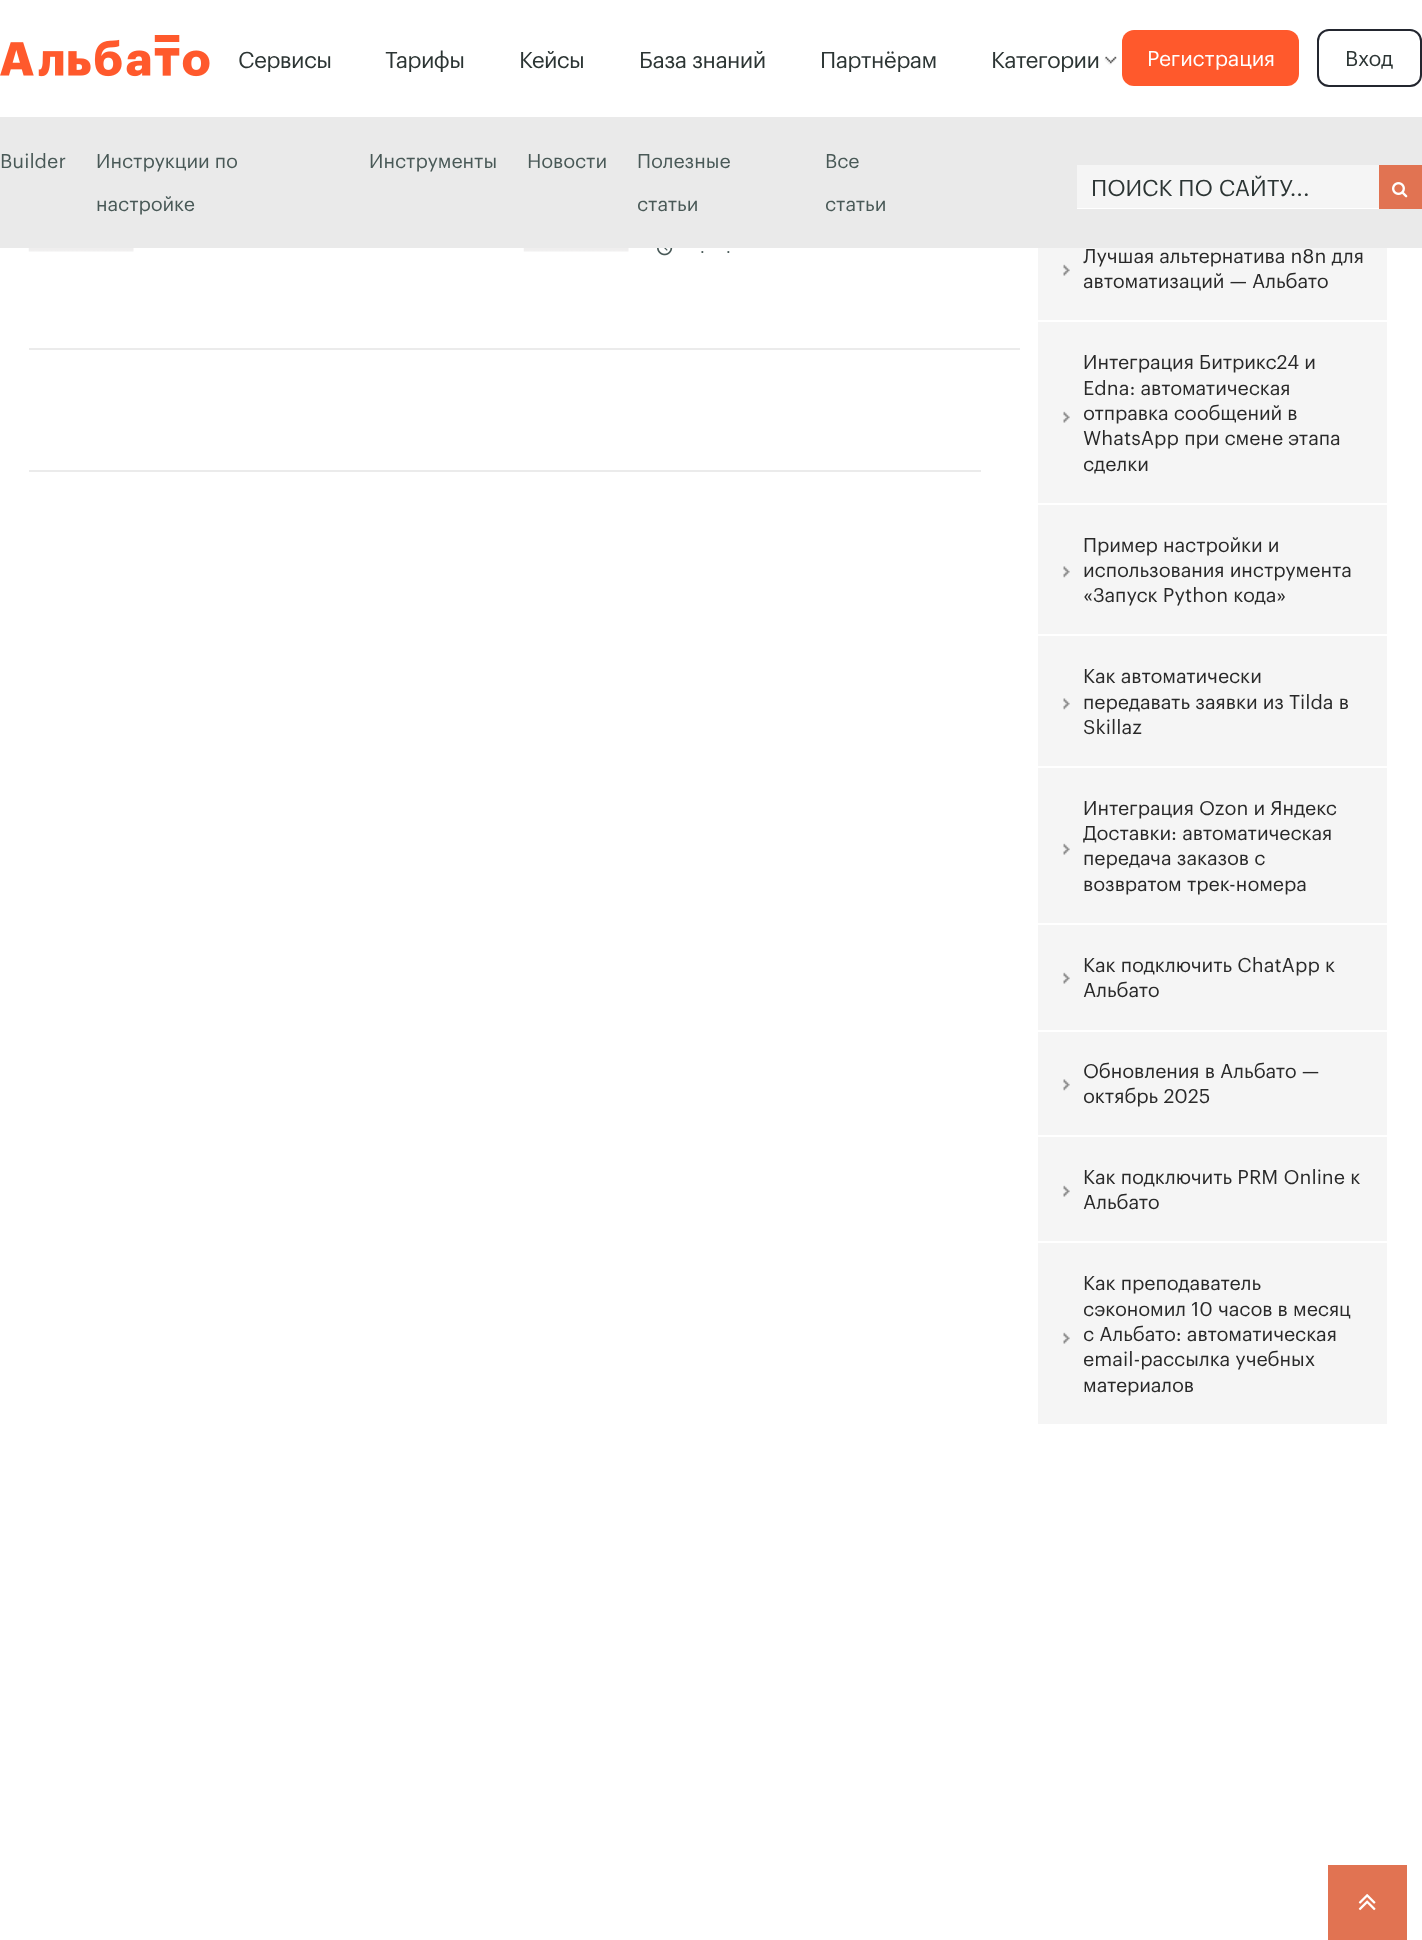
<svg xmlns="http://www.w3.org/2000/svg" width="1422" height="1940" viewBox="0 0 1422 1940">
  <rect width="100%" height="100%" fill="rgb(255,255,255)"/>
  <image x="0" y="35" width="210" height="42" href="pic1.png"/>
  <g font-family="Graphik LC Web" font-size="22.5" letter-spacing="-0.5" fill="rgb(44,53,52)">
    <text x="238" y="68">Сервисы</text>
    <text x="385" y="68">Тарифы</text>
    <text x="519" y="68">Кейсы</text>
    <text x="639" y="68">База знаний</text>
    <text x="820" y="68">Партнёрам</text>
  </g>
  <image x="1104" y="56" width="13" height="9" href="pic2.png"/>
  <text x="991" y="68" font-family="Graphik LC Web" font-size="22.5" letter-spacing="-0.5" fill="rgb(44,53,52)">Категории</text>
  <rect x="1122" y="30" width="177" height="56" rx="12" fill="rgb(255,89,44)"/>
  <text x="1147" y="66" font-family="Graphik LC Web" font-size="21" fill="rgb(255,255,255)">Регистрация</text>
  <rect x="1318" y="30" width="103" height="56" rx="11" fill="none" stroke="rgb(35,38,47)" stroke-width="2"/>
  <text x="1345" y="66" font-family="Graphik LC Web" font-size="21" fill="rgb(44,53,52)">Вход</text>
  <rect x="0" y="117" width="1422" height="131" fill="rgb(234,234,234)"/>
  <g font-family="Graphik LC Web" font-size="19.5" fill="rgb(73,89,87)">
    <text x="0" y="168">Builder</text>
    <text x="96" y="168">Инструкции по</text>
    <text x="96" y="211">настройке</text>
    <text x="369" y="168">Инструменты</text>
    <text x="527" y="168">Новости</text>
    <text x="637" y="168">Полезные</text>
    <text x="637" y="211">статьи</text>
    <text x="825" y="168">Все</text>
    <text x="825" y="211">статьи</text>
  </g>
  <rect x="1077" y="208" width="302" height="1" fill="rgb(255,255,255)"/>
  <rect x="1077" y="165" width="302" height="43" fill="rgb(245,245,245)"/>
  <text x="1091" y="196" font-family="Graphik LC Web" font-size="22.5" fill="rgb(44,53,52)">ПОИСК ПО САЙТУ...</text>
  <rect x="1379" y="165" width="43" height="44" fill="rgb(225,115,82)"/>
  <image x="1392" y="182" width="16" height="16" href="pic3.png"/>
  <rect x="29" y="348" width="991" height="2" fill="rgb(235,235,235)"/>
  <image x="28" y="248" width="106" height="4" href="pic4.png"/>
  <image x="523" y="248" width="106" height="4" href="pic4.png"/>
  <image x="657" y="248" width="16" height="8" href="pic5.png"/>
  <g font-family="Graphik LC Web" font-size="16" fill="rgb(73,89,87)">
    <text x="700" y="253">.</text>
    <text x="726" y="253">.</text>
  </g>
  <rect x="29" y="470" width="952" height="2" fill="rgb(235,235,235)"/>
  <rect x="1038" y="248" width="349" height="72" fill="rgb(245,245,245)"/>
  <image x="1063" y="264" width="7" height="12" href="pic6.png"/>
  <g font-family="Graphik LC Web" font-size="19.5" fill="rgb(41,41,41)">
    <text>
      <tspan x="1083" y="263">Лучшая альтернатива n8n для</tspan>
      <tspan x="1083" y="288">автоматизаций — Альбато</tspan>
    </text>
  </g>
  <rect x="1038" y="322" width="349" height="181" fill="rgb(245,245,245)"/>
  <image x="1063" y="411" width="7" height="12" href="pic6.png"/>
  <g font-family="Graphik LC Web" font-size="19.5" fill="rgb(41,41,41)">
    <text>
      <tspan x="1083" y="369">Интеграция Битрикс24 и</tspan>
      <tspan x="1083" y="395">Edna: автоматическая</tspan>
      <tspan x="1083" y="420">отправка сообщений в</tspan>
      <tspan x="1083" y="445">WhatsApp при смене этапа</tspan>
      <tspan x="1083" y="471">сделки</tspan>
    </text>
  </g>
  <rect x="1038" y="505" width="349" height="129" fill="rgb(245,245,245)"/>
  <image x="1063" y="566" width="7" height="12" href="pic7.png"/>
  <g font-family="Graphik LC Web" font-size="19.5" fill="rgb(41,41,41)">
    <text>
      <tspan x="1083" y="552">Пример настройки и</tspan>
      <tspan x="1083" y="577">использования инструмента</tspan>
      <tspan x="1083" y="602">«Запуск Python кода»</tspan>
    </text>
  </g>
  <rect x="1038" y="636" width="349" height="130" fill="rgb(245,245,245)"/>
  <image x="1063" y="698" width="7" height="12" href="pic7.png"/>
  <g font-family="Graphik LC Web" font-size="19.5" fill="rgb(41,41,41)">
    <text>
      <tspan x="1083" y="683">Как автоматически</tspan>
      <tspan x="1083" y="709">передавать заявки из Tilda в</tspan>
      <tspan x="1083" y="734">Skillaz</tspan>
    </text>
  </g>
  <rect x="1038" y="768" width="349" height="155" fill="rgb(245,245,245)"/>
  <image x="1063" y="843" width="7" height="12" href="pic6.png"/>
  <g font-family="Graphik LC Web" font-size="19.5" fill="rgb(41,41,41)">
    <text>
      <tspan x="1083" y="815">Интеграция Ozon и Яндекс</tspan>
      <tspan x="1083" y="840">Доставки: автоматическая</tspan>
      <tspan x="1083" y="865">передача заказов с</tspan>
      <tspan x="1083" y="891">возвратом трек-номера</tspan>
    </text>
  </g>
  <rect x="1038" y="925" width="349" height="105" fill="rgb(245,245,245)"/>
  <image x="1063" y="972" width="7" height="12" href="pic6.png"/>
  <g font-family="Graphik LC Web" font-size="19.5" fill="rgb(41,41,41)">
    <text>
      <tspan x="1083" y="972">Как подключить ChatApp к</tspan>
      <tspan x="1083" y="997">Альбато</tspan>
    </text>
  </g>
  <rect x="1038" y="1032" width="349" height="103" fill="rgb(245,245,245)"/>
  <image x="1063" y="1079" width="7" height="12" href="pic7.png"/>
  <g font-family="Graphik LC Web" font-size="19.5" fill="rgb(41,41,41)">
    <text>
      <tspan x="1083" y="1078">Обновления в Альбато —</tspan>
      <tspan x="1083" y="1103">октябрь 2025</tspan>
    </text>
  </g>
  <rect x="1038" y="1137" width="349" height="104" fill="rgb(245,245,245)"/>
  <image x="1063" y="1185" width="7" height="12" href="pic6.png"/>
  <g font-family="Graphik LC Web" font-size="19.5" fill="rgb(41,41,41)">
    <text>
      <tspan x="1083" y="1184">Как подключить PRM Online к</tspan>
      <tspan x="1083" y="1209">Альбато</tspan>
    </text>
  </g>
  <rect x="1038" y="1243" width="349" height="181" fill="rgb(245,245,245)"/>
  <image x="1063" y="1332" width="7" height="12" href="pic6.png"/>
  <g font-family="Graphik LC Web" font-size="19.5" fill="rgb(41,41,41)">
    <text>
      <tspan x="1083" y="1290">Как преподаватель</tspan>
      <tspan x="1083" y="1316">сэкономил 10 часов в месяц</tspan>
      <tspan x="1083" y="1341">с Альбато: автоматическая</tspan>
      <tspan x="1083" y="1366">email-рассылка учебных</tspan>
      <tspan x="1083" y="1392">материалов</tspan>
    </text>
  </g>
  <rect x="1328" y="1865" width="79" height="75" fill="rgb(225,115,82)"/>
  <image x="1358" y="1894" width="18" height="17" href="pic8.png"/>
</svg>
